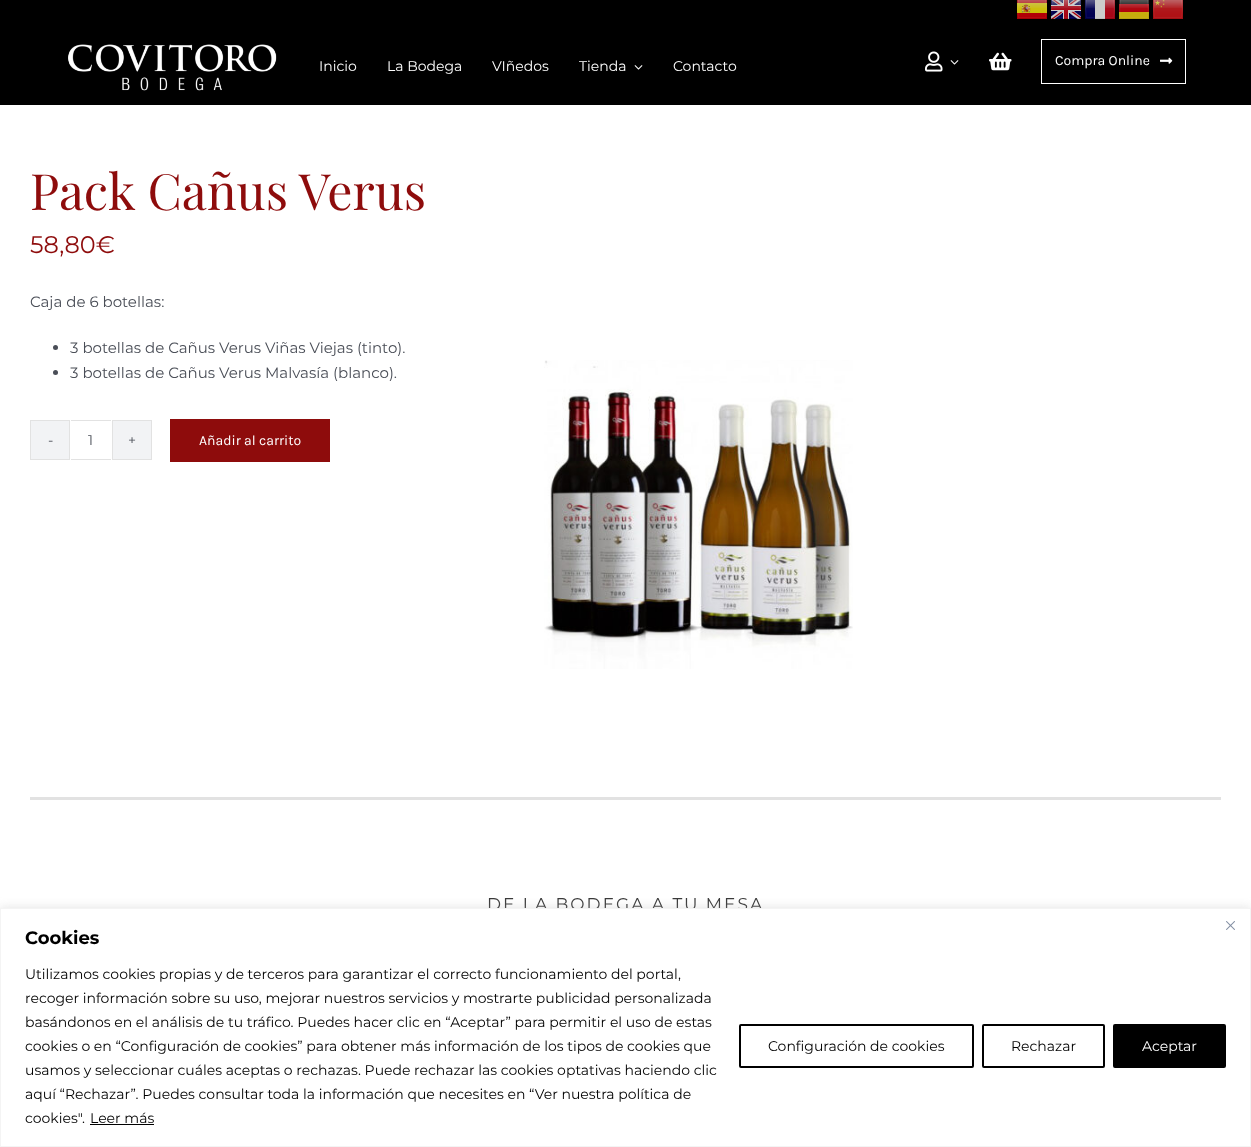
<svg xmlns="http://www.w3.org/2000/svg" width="1251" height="1147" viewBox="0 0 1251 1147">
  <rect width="100%" height="100%" fill="rgb(255,255,255)"/>
  <rect x="0" y="0" width="1251" height="105" fill="rgb(0,0,0)"/>
  <image x="1017" y="0" width="30" height="19" href="pic1.png"/>
  <image x="1051" y="0" width="30" height="19" href="pic2.png"/>
  <image x="1085" y="0" width="30" height="19" href="pic3.png"/>
  <image x="1119" y="0" width="30" height="19" href="pic4.png"/>
  <image x="1153" y="0" width="30" height="19" href="pic5.png"/>
  <image x="68" y="44" width="209" height="47" href="pic6.png"/>
  <g font-family="Montserrat" font-size="14" fill="rgb(255,255,255)">
    <text x="319" y="71">Inicio</text>
    <text x="387" y="71">La Bodega</text>
    <text x="492" y="71">VIñedos</text>
    <text x="579" y="71">Tienda</text>
  </g>
  <image x="634" y="65" width="9" height="5" href="pic7.png"/>
  <text x="673" y="71" font-family="Montserrat" font-size="14" fill="rgb(255,255,255)">Contacto</text>
  <image x="925" y="51" width="18" height="21" href="pic8.png"/>
  <image x="950" y="60" width="9" height="5" href="pic7.png"/>
  <image x="989" y="52" width="23" height="19" href="pic9.png"/>
  <rect x="1041.5" y="39.5" width="144" height="44" fill="none" stroke="rgb(255,255,255)"/>
  <text x="1055" y="65" font-family="Karla" font-size="14" fill="rgb(255,255,255)">Compra Online</text>
  <image x="1160" y="57" width="13" height="7" href="pic10.png"/>
  <text x="30" y="210" font-family="Playfair Display" font-size="50" fill="rgb(142,12,12)">Pack Cañus Verus</text>
  <text x="30" y="253" font-family="Montserrat" font-size="24" fill="rgb(142,12,12)">58,80€</text>
  <text x="30" y="307" font-family="Montserrat" font-size="15" fill="rgb(74,78,87)">Caja de 6 botellas:</text>
  <circle cx="55.5" cy="347.5" r="2.5" fill="rgb(74,78,87)"/>
  <text x="70" y="353" font-family="Montserrat" font-size="15" fill="rgb(74,78,87)">3 botellas de Cañus Verus Viñas Viejas (tinto).</text>
  <circle cx="55.5" cy="372.5" r="2.5" fill="rgb(74,78,87)"/>
  <text x="70" y="378" font-family="Montserrat" font-size="15" fill="rgb(74,78,87)">3 botellas de Cañus Verus Malvasía (blanco).</text>
  <rect x="30.5" y="420.5" width="39" height="39" fill="rgb(242,243,245)" stroke="rgb(226,226,226)"/>
  <text x="48" y="445" font-family="Montserrat" font-size="14" fill="rgb(74,78,87)">-</text>
  <rect x="71" y="420" width="40" height="1" fill="rgb(226,226,226)"/>
  <rect x="71" y="459" width="40" height="1" fill="rgb(226,226,226)"/>
  <text x="88" y="445" font-family="Montserrat" font-size="14" fill="rgb(74,78,87)">1</text>
  <rect x="112.5" y="420.5" width="39" height="39" fill="rgb(242,243,245)" stroke="rgb(226,226,226)"/>
  <text x="128" y="445" font-family="Montserrat" font-size="14" fill="rgb(74,78,87)">+</text>
  <rect x="170" y="419" width="160" height="43" fill="rgb(142,12,12)"/>
  <text x="199" y="445" font-family="Karla" font-size="14" fill="rgb(255,255,255)">Añadir al carrito</text>
  <image x="544" y="360" width="309" height="309" href="pic11.png"/>
  <rect x="30" y="797" width="1191" height="3" fill="rgb(226,226,226)"/>
  <text x="487" y="910" font-family="Montserrat" font-size="17" letter-spacing="2" fill="rgb(58,58,58)">DE LA BODEGA A TU MESA</text>
  <rect x="0" y="907" width="1251" height="239" fill="rgba(172,171,171,0.3)" filter="blur(5px)"/>
  <rect x="0.5" y="908.5" width="1250" height="238" fill="rgb(255,255,255)" stroke="rgb(244,244,244)"/>
  <image x="1226" y="921" width="9" height="9" href="pic12.png"/>
  <text x="25" y="944" font-family="Montserrat" font-size="18" font-weight="bold" fill="rgb(0,0,0)">Cookies</text>
  <g font-family="Montserrat" font-size="14" fill="rgb(0,0,0)">
    <text>
      <tspan x="25" y="979">Utilizamos cookies propias y de terceros para garantizar el correcto funcionamiento del portal,</tspan>
      <tspan x="25" y="1003">recoger información sobre su uso, mejorar nuestros servicios y mostrarte publicidad personalizada</tspan>
      <tspan x="25" y="1027">basándonos en el análisis de tu tráfico. Puedes hacer clic en “Aceptar” para permitir el uso de estas</tspan>
      <tspan x="25" y="1051">cookies o en “Configuración de cookies” para obtener más información de los tipos de cookies que</tspan>
      <tspan x="25" y="1075">usamos y seleccionar cuáles aceptas o rechazas. Puede rechazar las cookies optativas haciendo clic</tspan>
      <tspan x="25" y="1099">aquí “Rechazar”. Puedes consultar toda la información que necesites en “Ver nuestra política de</tspan>
      <tspan x="25" y="1123">cookies"</tspan>
    </text>
    <text x="82" y="1123">.</text>
    <text x="90" y="1123">Leer más</text>
  </g>
  <rect x="90" y="1124" width="64" height="1" fill="rgb(0,0,0)"/>
  <rect x="740" y="1025" width="233" height="42" rx="1" fill="none" stroke="rgb(0,0,0)" stroke-width="2"/>
  <text x="768" y="1051" font-family="Montserrat" font-size="14" fill="rgb(0,0,0)">Configuración de cookies</text>
  <rect x="983" y="1025" width="121" height="42" rx="1" fill="none" stroke="rgb(0,0,0)" stroke-width="2"/>
  <text x="1011" y="1051" font-family="Montserrat" font-size="14" fill="rgb(0,0,0)">Rechazar</text>
  <rect x="1114" y="1025" width="111" height="42" rx="1" fill="rgb(0,0,0)" stroke="rgb(0,0,0)" stroke-width="2"/>
  <text x="1142" y="1051" font-family="Montserrat" font-size="14" fill="rgb(255,255,255)">Aceptar</text>
</svg>
